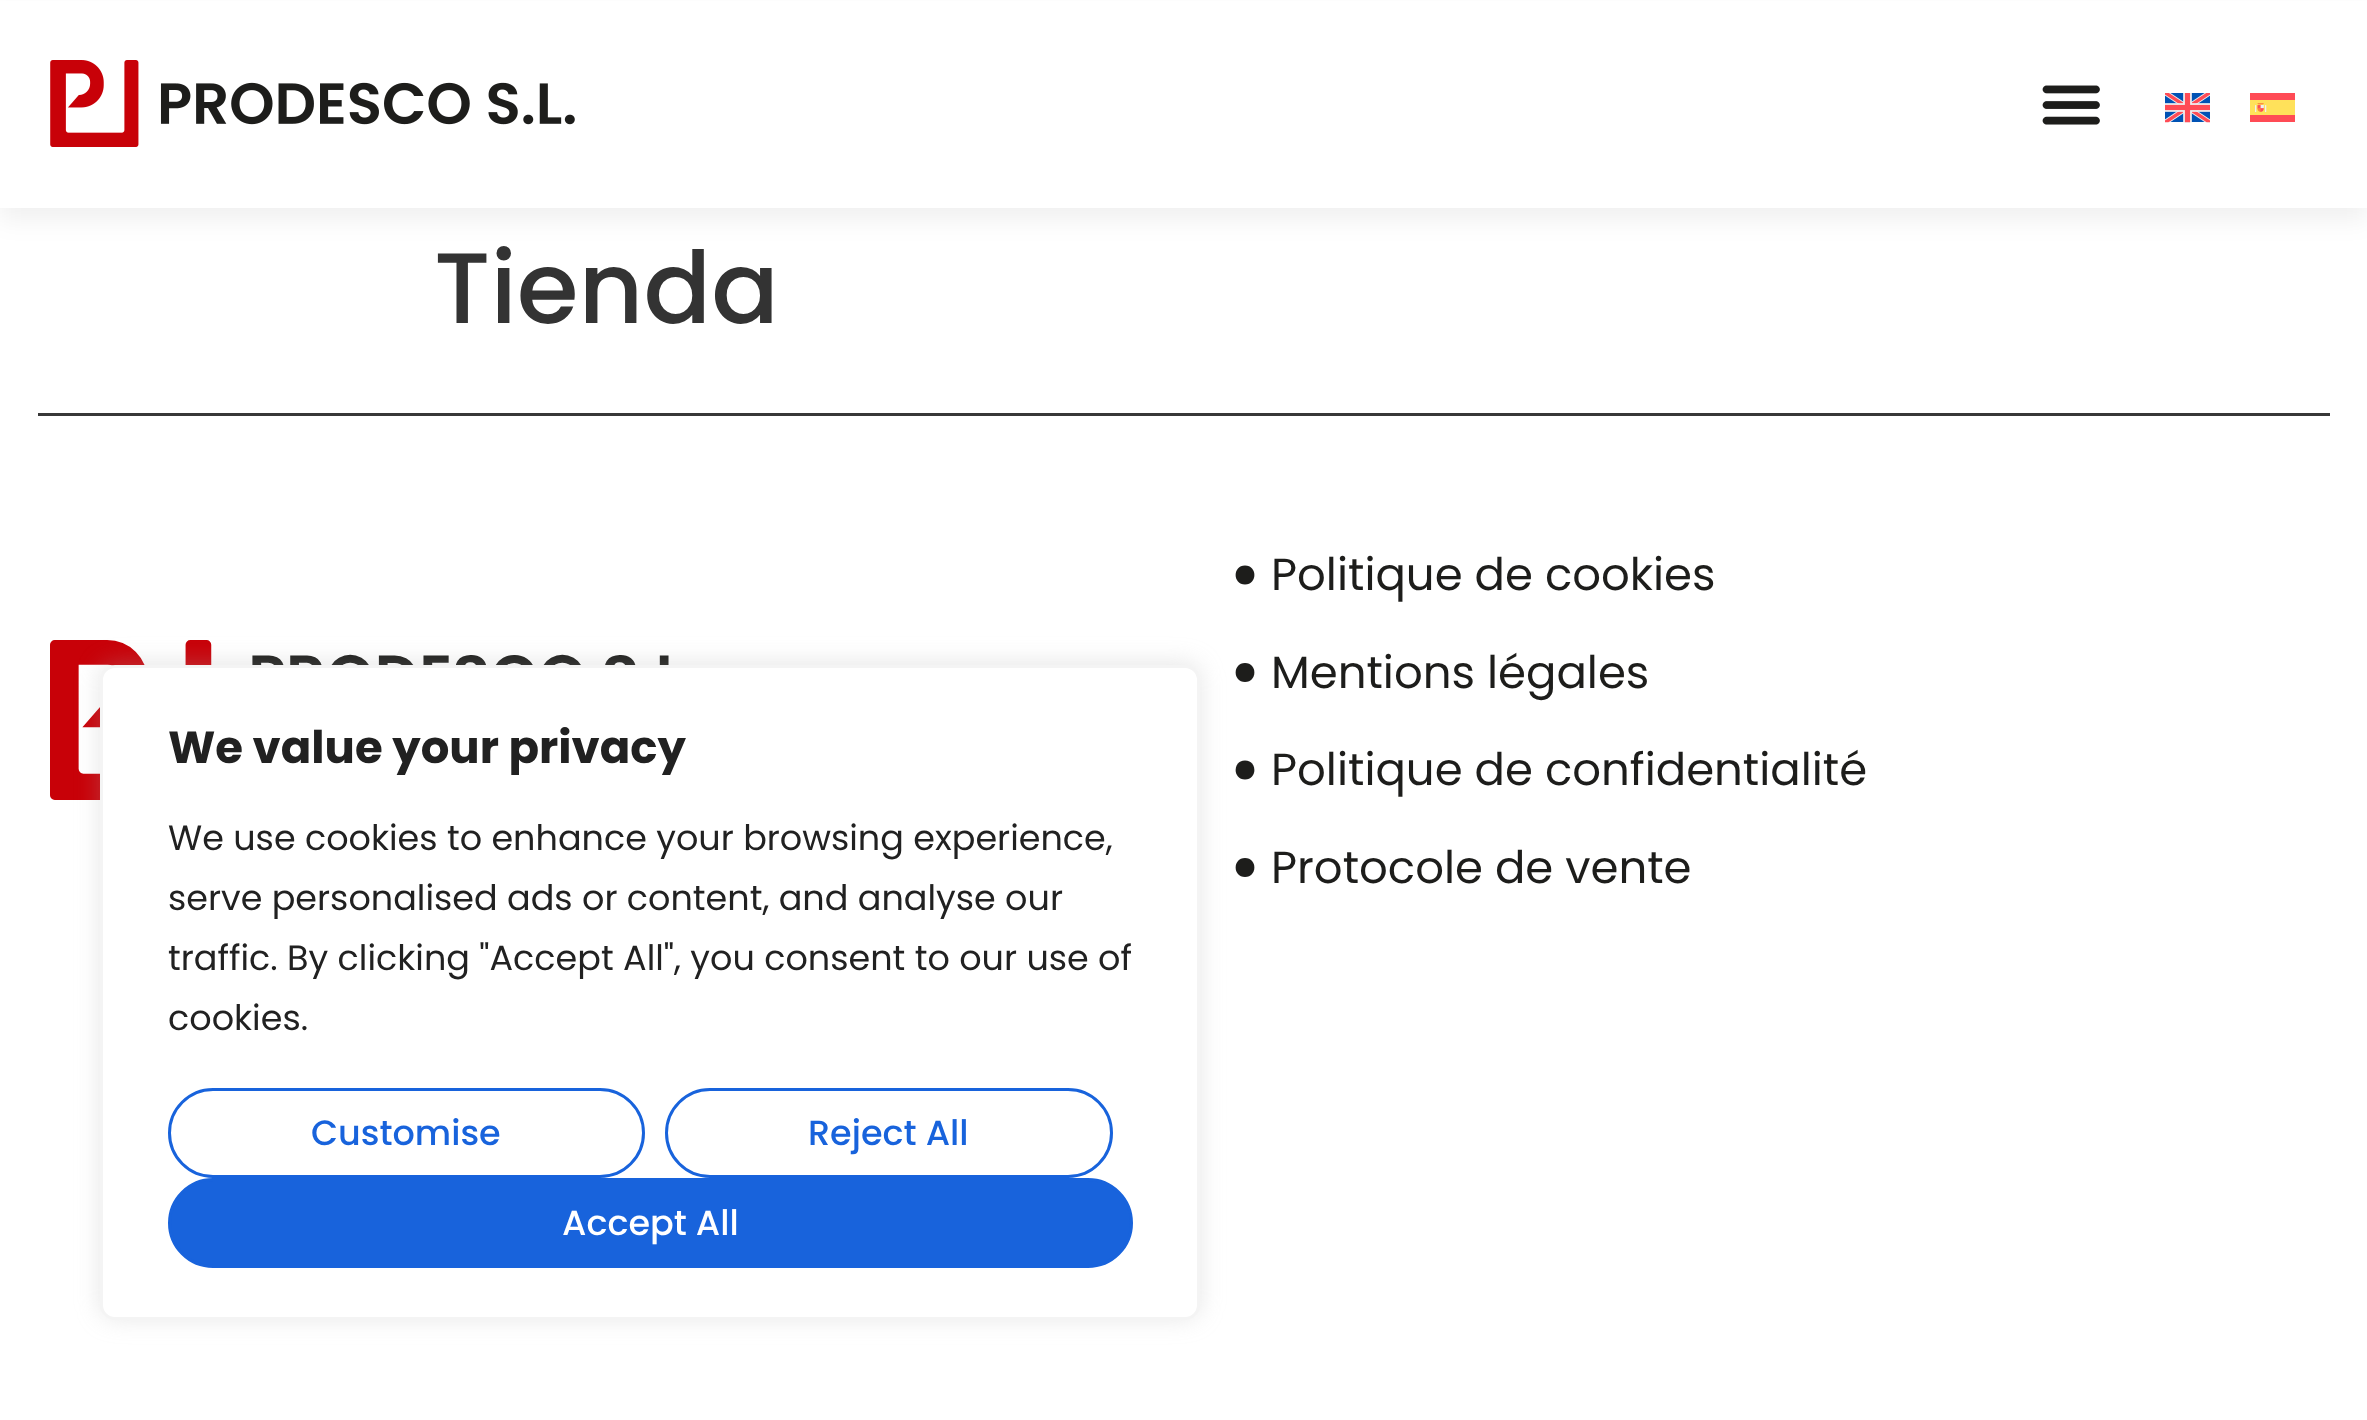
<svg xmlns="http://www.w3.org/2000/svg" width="2367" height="1420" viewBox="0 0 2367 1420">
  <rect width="100%" height="100%" fill="rgb(255,255,255)"/>
  <rect x="0" y="13" width="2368" height="207" fill="rgba(0,0,0,0.06)" filter="blur(12.5px)"/>
  <rect x="0" y="1" width="2367" height="207" fill="rgb(255,255,255)"/>
  <image x="50" y="60" width="525" height="87" href="pic1.png"/>
  <image x="2042" y="85" width="58" height="40" href="pic2.png"/>
  <image x="2165" y="93" width="45" height="30" href="pic3.png"/>
  <image x="2250" y="93" width="45" height="29" href="pic4.png"/>
  <text x="434" y="323" font-family="Poppins" font-size="100" font-weight="500" fill="rgb(51,51,51)">Tienda</text>
  <image x="50" y="640" width="619" height="160" href="pic5.png"/>
  <path d="M1245 663C1232.5 663 1232.5 682 1245 682C1257.5 682 1257.5 663 1245 663Z" fill="rgb(29,29,27)"/>
  <path d="M1245 760.5C1232.5 760.5 1232.5 779.5 1245 779.5C1257.5 779.5 1257.5 760.5 1245 760.5Z" fill="rgb(29,29,27)"/>
  <path d="M1245 858C1232.5 858 1232.5 877 1245 877C1257.5 877 1257.5 858 1245 858Z" fill="rgb(29,29,27)"/>
  <rect x="100" y="663" width="1100" height="655" rx="15" fill="rgba(172,171,171,0.3)" filter="blur(12.5px)"/>
  <rect x="101.5" y="666.5" width="1097" height="652" rx="13.5" fill="rgb(255,255,255)" stroke="rgb(244,244,244)" stroke-width="3"/>
  <text x="168" y="763" font-family="Poppins" font-size="45" font-weight="bold" fill="rgb(33,33,33)">We value your privacy</text>
  <g font-family="Poppins" font-size="35" fill="rgb(33,33,33)">
    <text>
      <tspan x="168" y="850">We use cookies to enhance your browsing experience,</tspan>
      <tspan x="168" y="910">serve personalised ads or content, and analyse our</tspan>
      <tspan x="168" y="970">traffic. By clicking "Accept All", you consent to our use of</tspan>
      <tspan x="168" y="1030">cookies.</tspan>
    </text>
  </g>
  <rect x="169.5" y="1089.5" width="474" height="87" rx="43.5" fill="none" stroke="rgb(24,99,220)" stroke-width="3"/>
  <text x="311" y="1145" font-family="Poppins" font-size="35" font-weight="500" fill="rgb(24,99,220)">Customise</text>
  <rect x="666.5" y="1089.5" width="445" height="87" rx="43.5" fill="none" stroke="rgb(24,99,220)" stroke-width="3"/>
  <text x="808" y="1145" font-family="Poppins" font-size="35" font-weight="500" fill="rgb(24,99,220)">Reject All</text>
  <rect x="169.5" y="1179.5" width="962" height="87" rx="43.5" fill="rgb(24,99,220)" stroke="rgb(24,99,220)" stroke-width="3"/>
  <text x="562" y="1235" font-family="Poppins" font-size="35" font-weight="500" fill="rgb(255,255,255)">Accept All</text>
  <rect x="38" y="413" width="2292" height="3" fill="rgb(56,56,56)"/>
  <path d="M1245 565.5C1232.5 565.5 1232.5 584.5 1245 584.5C1257.5 584.5 1257.5 565.5 1245 565.5Z" fill="rgb(29,29,27)"/>
  <g font-family="Poppins" font-size="45" fill="rgb(29,29,27)">
    <text x="1271" y="590">Politique de cookies</text>
    <text x="1271" y="688">Mentions légales</text>
    <text x="1271" y="785">Politique de confidentialité</text>
    <text x="1271" y="883">Protocole de vente</text>
  </g>
</svg>
